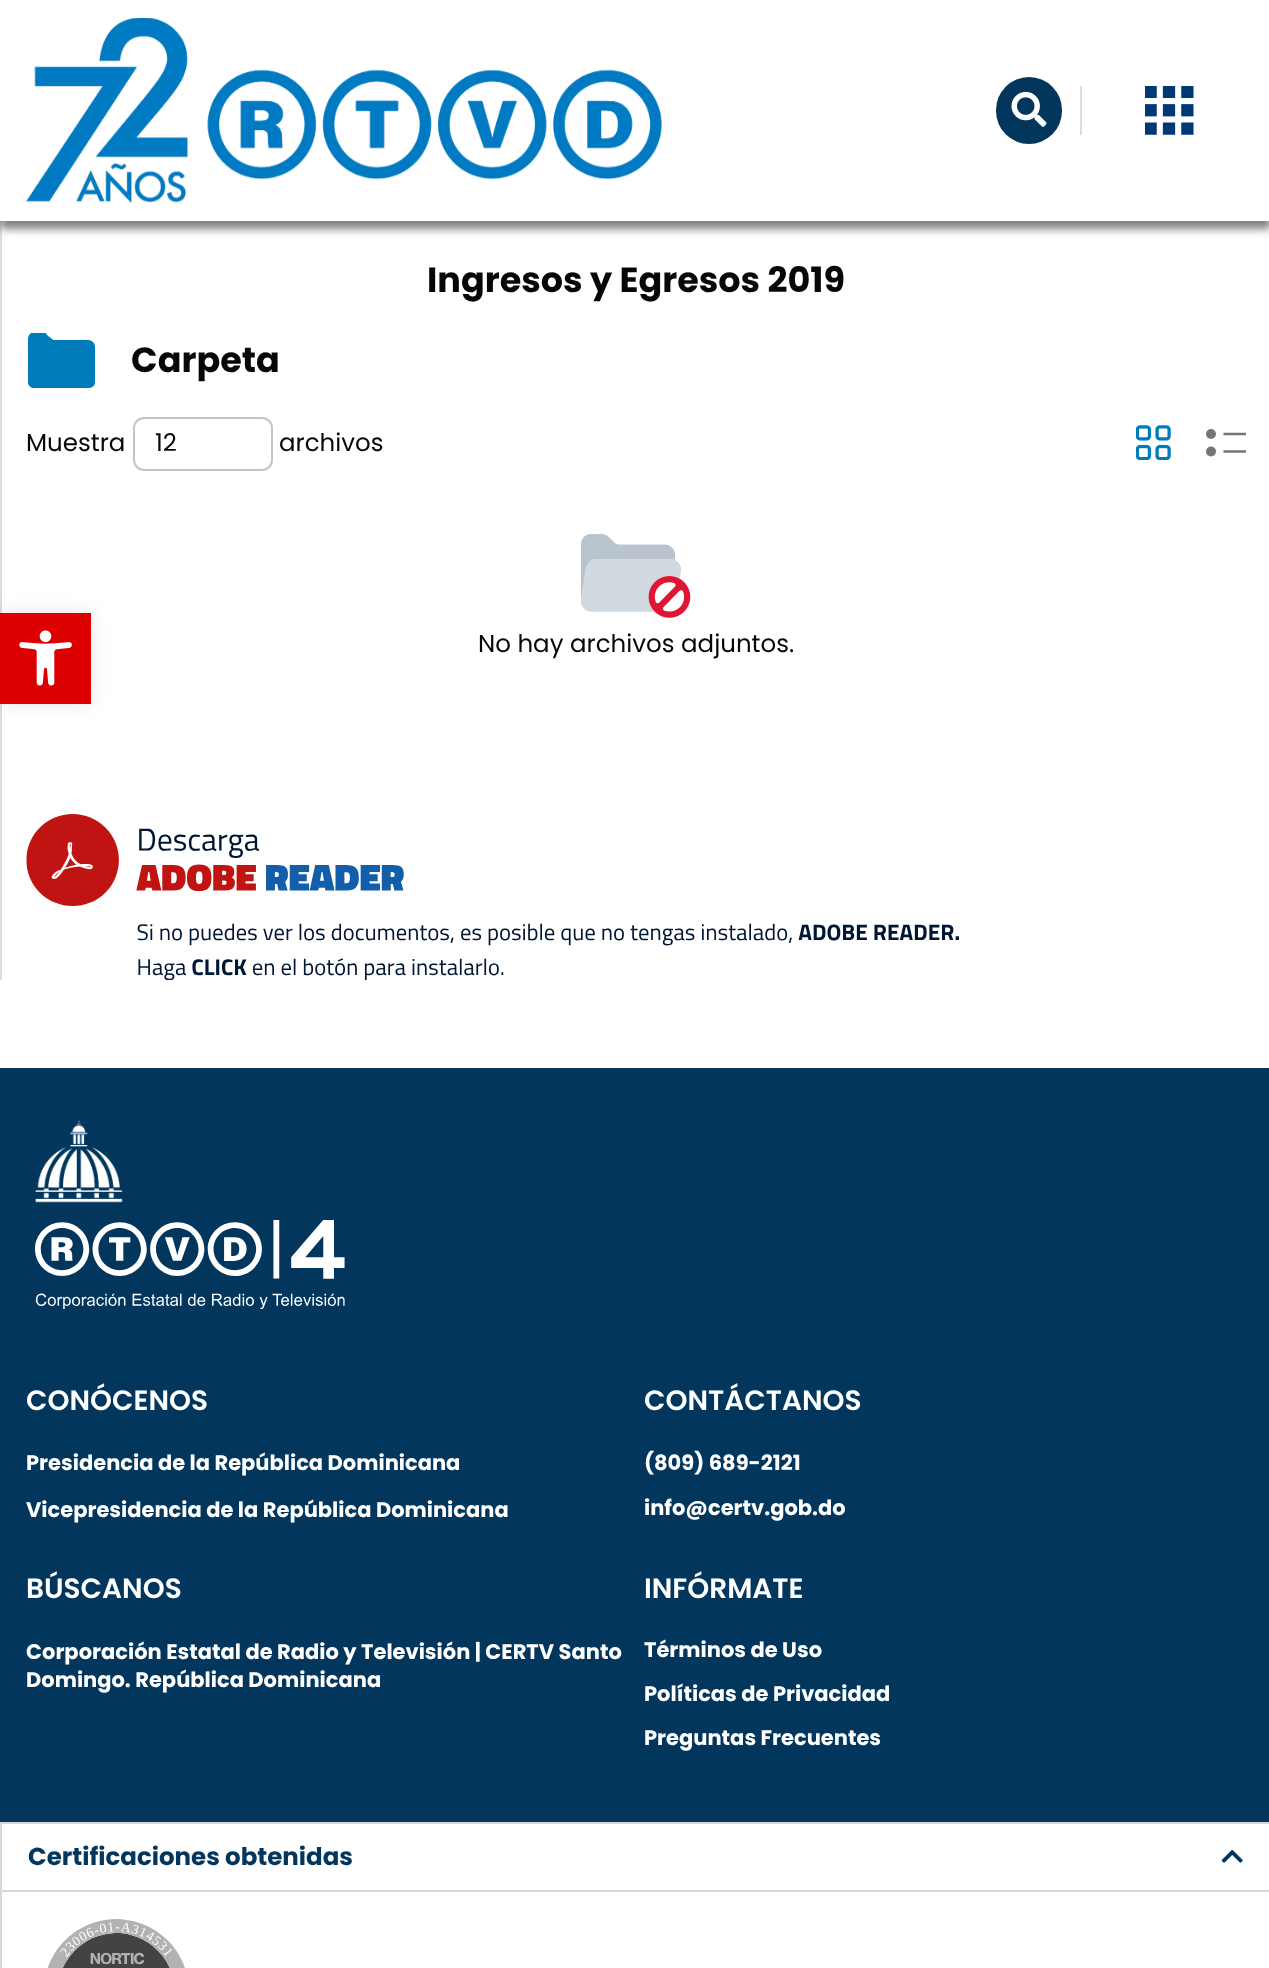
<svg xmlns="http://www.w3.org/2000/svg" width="1269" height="1968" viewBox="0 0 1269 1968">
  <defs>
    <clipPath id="clip1"><rect x="26" y="333" width="70" height="56"/></clipPath>
  </defs>
  <rect width="100%" height="100%" fill="rgb(255,255,255)"/>
  <rect x="0" y="214" width="2" height="766" fill="rgb(219,220,221)"/>
  <rect x="0" y="9" width="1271" height="220" fill="rgba(0,0,0,0.5)" filter="blur(4.5px)"/>
  <rect x="0" y="0" width="1269" height="221" fill="rgb(255,255,255)"/>
  <image x="26" y="18" width="636" height="185" href="pic1.png"/>
  <rect x="996" y="77" width="66" height="67" rx="33" fill="rgb(2,54,92)"/>
  <image x="1011" y="91" width="36" height="36" href="pic2.png"/>
  <rect x="1080" y="86" width="2" height="49" fill="rgb(219,220,221)"/>
  <image x="1145" y="86" width="49" height="49" href="pic3.png"/>
  <text x="427" y="292" font-family="Poppins" font-size="35" font-weight="bold" fill="rgb(7,7,7)">Ingresos y Egresos 2019</text>
  <g clip-path="url(#clip1)">
    <path d="M88 340H55C54 340 53 340 52 339L47 335C46 333 45 332 43 332H34C31 332 28 335 28 339V382C28 386 31 388 34 388H88C92 388 95 386 95 382V347C95 343 92 340 88 340Z" fill="rgb(0,124,186)"/>
  </g>
  <text x="131" y="372" font-family="Poppins" font-size="35" font-weight="bold" fill="rgb(7,7,7)">Carpeta</text>
  <text x="26" y="451" font-family="Poppins" font-size="24.5" fill="rgb(7,7,7)">Muestra</text>
  <rect x="134" y="418" width="138" height="52" rx="10" fill="none" stroke="rgb(196,196,196)" stroke-width="2"/>
  <g font-family="Poppins" font-size="24.5" fill="rgb(7,7,7)">
    <text x="155" y="451">12</text>
    <text x="279" y="451">archivos</text>
  </g>
  <image x="1136" y="425" width="35" height="35" href="pic4.png"/>
  <path d="M1223.5 434H1246M1223.5 451.5H1246" fill="none" stroke="rgb(117,117,117)" stroke-width="2.6"/>
  <circle cx="1211" cy="451.5" r="5" fill="rgb(117,117,117)"/>
  <circle cx="1211" cy="434" r="5" fill="rgb(117,117,117)"/>
  <image x="581" y="534" width="110" height="84" href="pic5.png"/>
  <text x="478" y="652" font-family="Poppins" font-size="24.5" fill="rgb(7,7,7)">No hay archivos adjuntos.</text>
  <image x="26" y="814" width="933" height="166" href="pic6.png"/>
  <rect x="0" y="613" width="91" height="91" fill="rgba(0,0,0,0.1)" filter="blur(9px)"/>
  <rect x="0" y="613" width="91" height="91" fill="rgb(221,0,0)"/>
  <image x="19" y="630" width="53" height="56" href="pic7.png"/>
  <rect x="0" y="1068" width="1269" height="754" fill="rgb(2,54,92)"/>
  <image x="35" y="1120" width="88" height="83" href="pic8.png"/>
  <image x="35" y="1220" width="310" height="89" href="pic9.png"/>
  <text x="26" y="1410" font-family="Poppins" font-size="28" font-weight="600" fill="rgb(255,255,255)">CONÓCENOS</text>
  <g font-family="Poppins" font-size="21" font-weight="bold" fill="rgb(255,255,255)">
    <text x="26" y="1470">Presidencia de la República Dominicana</text>
    <text x="26" y="1517">Vicepresidencia de la República Dominicana</text>
  </g>
  <text x="644" y="1410" font-family="Poppins" font-size="28" font-weight="600" fill="rgb(255,255,255)">CONTÁCTANOS</text>
  <g font-family="Poppins" font-size="21" font-weight="bold" fill="rgb(255,255,255)">
    <text x="644" y="1470">(809) 689-2121</text>
    <text x="644" y="1515">info@certv.gob.do</text>
  </g>
  <text x="26" y="1598" font-family="Poppins" font-size="28" font-weight="600" fill="rgb(255,255,255)">BÚSCANOS</text>
  <g font-family="Poppins" font-size="21" font-weight="bold" fill="rgb(255,255,255)">
    <text>
      <tspan x="26" y="1659">Corporación Estatal de Radio y Televisión | CERTV Santo</tspan>
      <tspan x="26" y="1687">Domingo. República Dominicana</tspan>
    </text>
  </g>
  <text x="644" y="1598" font-family="Poppins" font-size="28" font-weight="600" fill="rgb(255,255,255)">INFÓRMATE</text>
  <g font-family="Poppins" font-size="21" font-weight="bold" fill="rgb(255,255,255)">
    <text x="644" y="1657">Términos de Uso</text>
    <text x="644" y="1701">Políticas de Privacidad</text>
    <text x="644" y="1745">Preguntas Frecuentes</text>
  </g>
  <rect x="1" y="1823" width="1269" height="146" fill="none" stroke="rgb(213,216,220)" stroke-width="2"/>
  <text x="28" y="1865" font-family="Poppins" font-size="24.5" font-weight="bold" fill="rgb(2,54,92)">Certificaciones obtenidas</text>
  <image x="1221" y="1850" width="22" height="13" href="pic10.png"/>
  <rect x="2" y="1890" width="1267" height="2" fill="rgb(213,216,220)"/>
  <image x="47" y="1919" width="138" height="49" href="pic11.png"/>
</svg>
